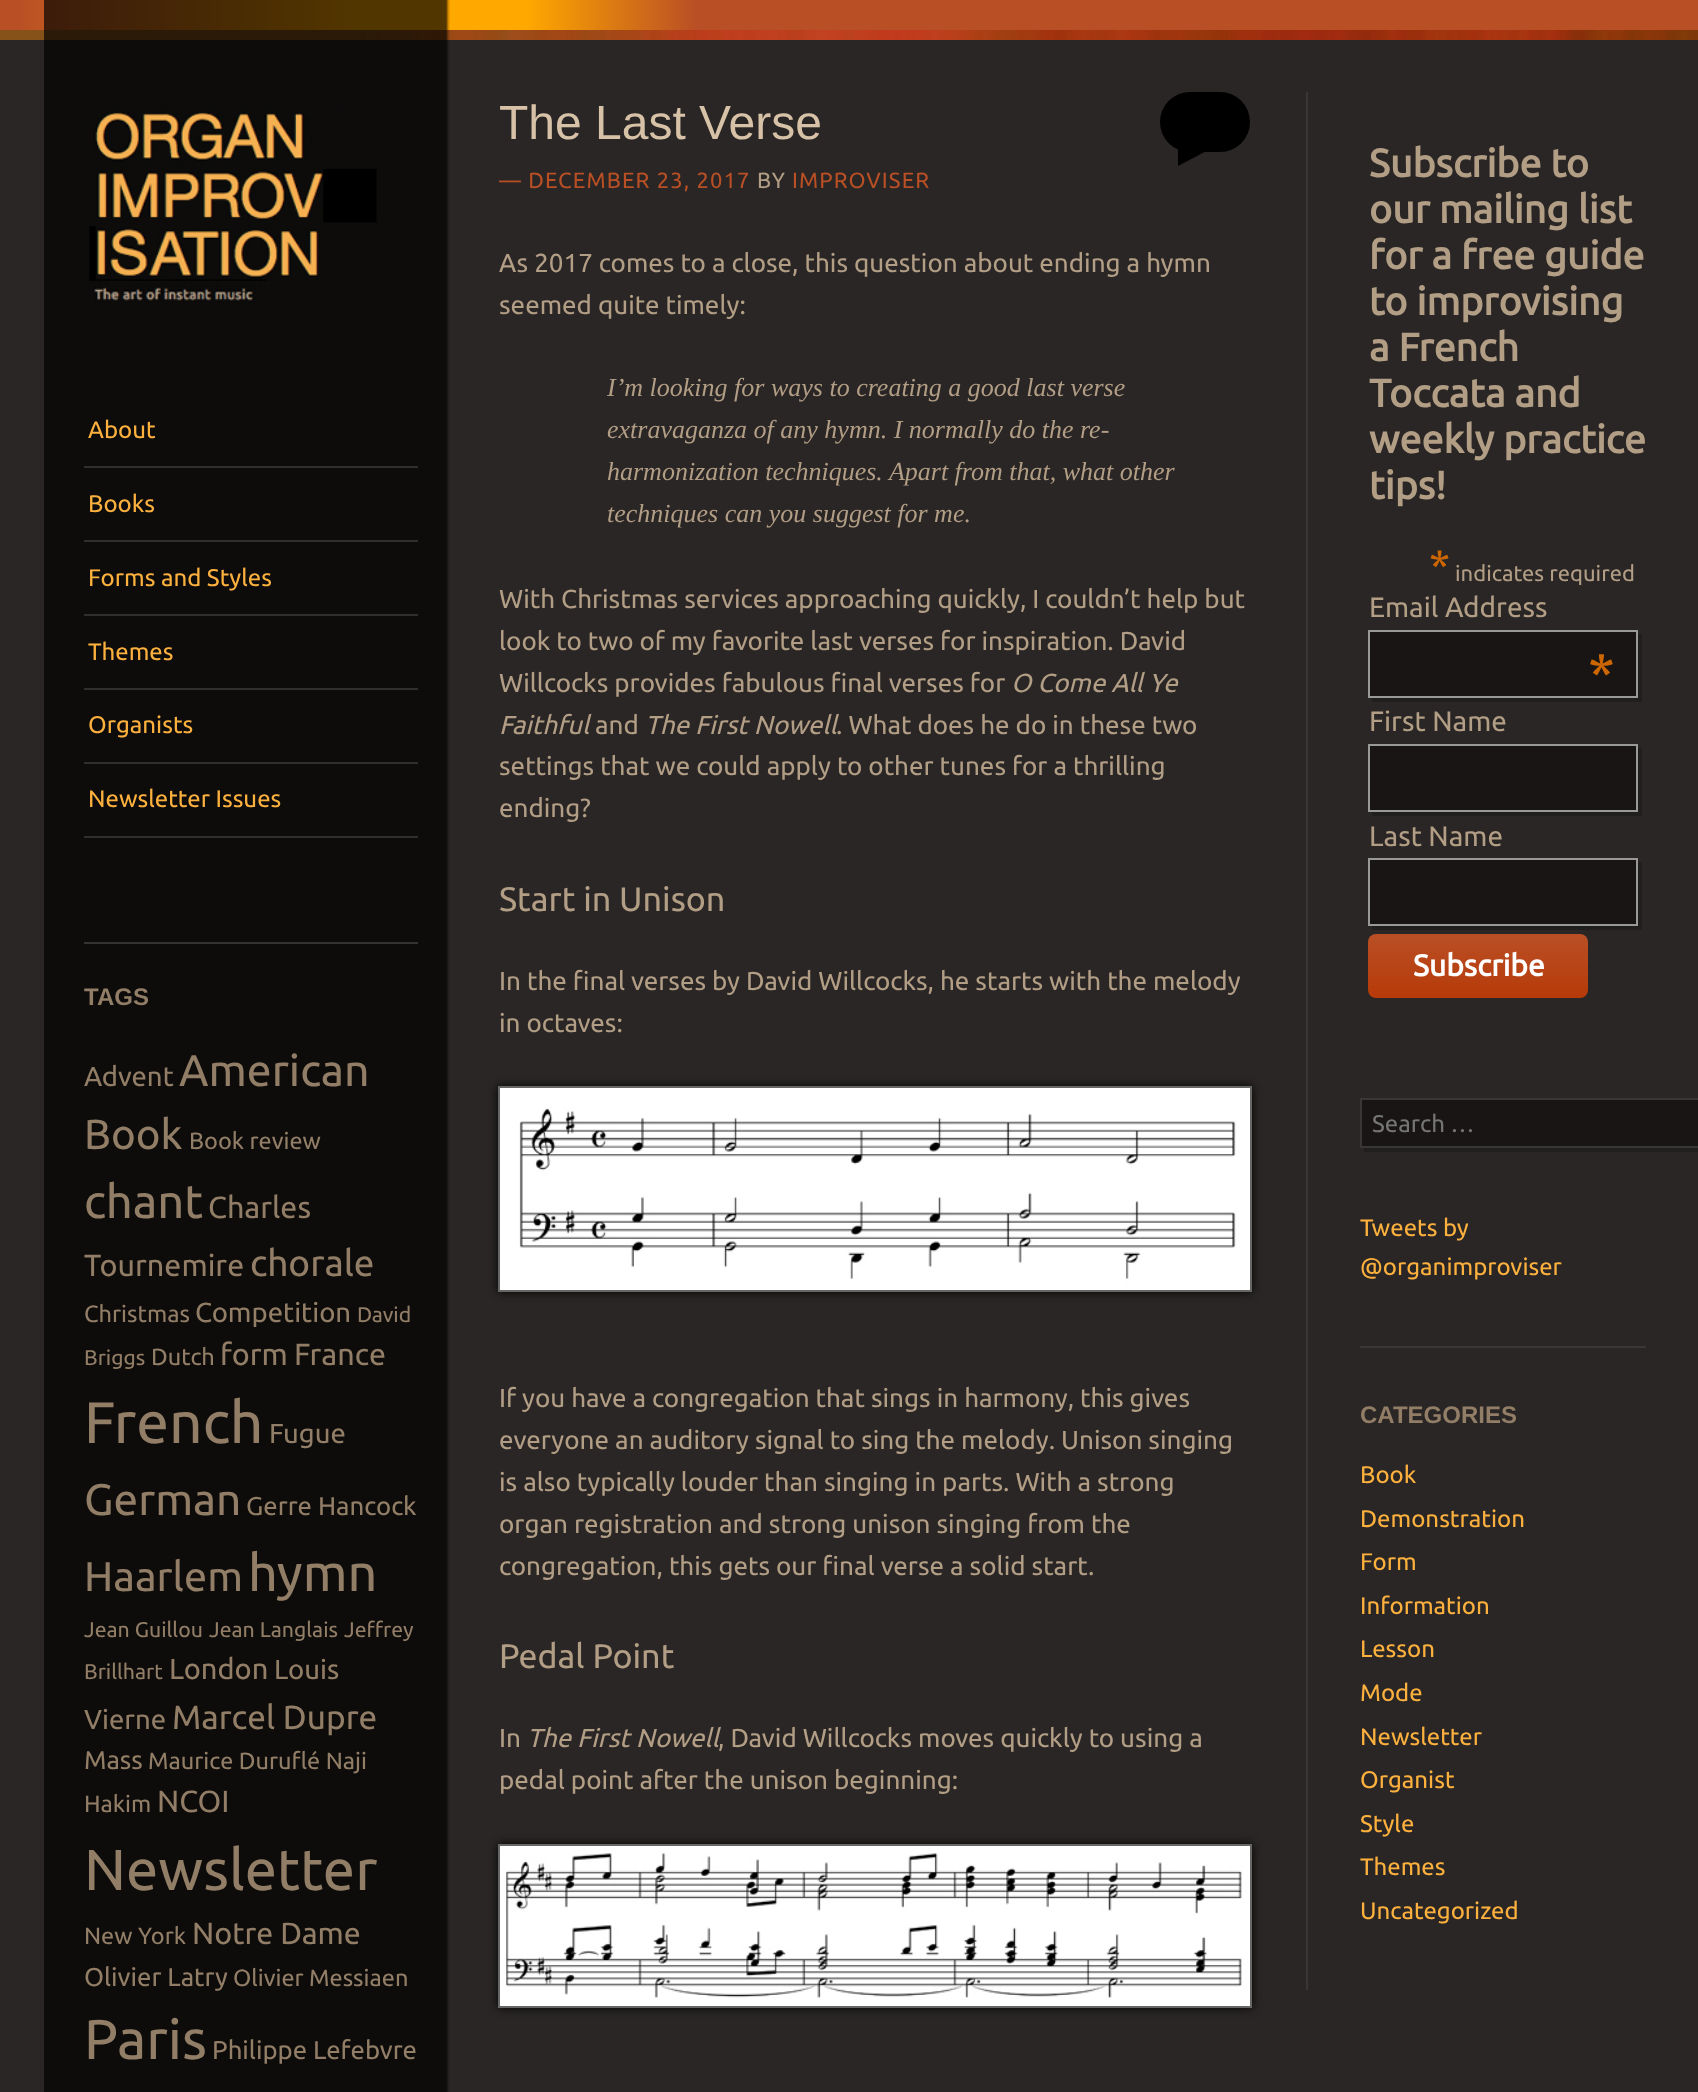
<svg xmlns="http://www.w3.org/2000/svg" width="1698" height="2092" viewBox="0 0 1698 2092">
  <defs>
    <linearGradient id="g1" gradientUnits="userSpaceOnUse" x1="0" y1="20" x2="1698" y2="20"><stop offset="0.01" stop-color="rgb(185,79,37)"/><stop offset="0.21" stop-color="rgb(255,168,0)"/><stop offset="0.31" stop-color="rgb(255,168,0)"/><stop offset="0.41" stop-color="rgb(185,79,37)"/></linearGradient>
    <linearGradient id="g2" gradientUnits="userSpaceOnUse" x1="1478" y1="934" x2="1478" y2="998"><stop offset="0" stop-color="rgb(185,79,37)"/><stop offset="1" stop-color="rgb(183,58,9)"/><stop offset="1" stop-color="rgb(125,185,232)"/></linearGradient>
  </defs>
  <rect width="100%" height="100%" fill="rgb(41,38,37)"/>
  <rect x="0" y="0" width="1698" height="30" fill="url(#g1)"/>
  <image x="0" y="30" width="1698" height="10" href="pic1.png"/>
  <image x="44" y="0" width="406" height="2092" href="pic2.png"/>
  <image x="89" y="105" width="288" height="197" href="pic3.png"/>
  <rect x="84" y="466" width="334" height="2" fill="rgb(48,47,45)"/>
  <text x="88" y="438" font-family="Ubuntu" font-size="24" fill="rgb(252,176,62)">About</text>
  <rect x="84" y="540" width="334" height="2" fill="rgb(48,47,45)"/>
  <text x="88" y="512" font-family="Ubuntu" font-size="24" fill="rgb(252,176,62)">Books</text>
  <rect x="84" y="614" width="334" height="2" fill="rgb(48,47,45)"/>
  <text x="88" y="586" font-family="Ubuntu" font-size="24" fill="rgb(252,176,62)">Forms and Styles</text>
  <rect x="84" y="688" width="334" height="2" fill="rgb(48,47,45)"/>
  <text x="88" y="660" font-family="Ubuntu" font-size="24" fill="rgb(252,176,62)">Themes</text>
  <rect x="84" y="762" width="334" height="2" fill="rgb(48,47,45)"/>
  <text x="88" y="733" font-family="Ubuntu" font-size="24" fill="rgb(252,176,62)">Organists</text>
  <rect x="84" y="836" width="334" height="2" fill="rgb(48,47,45)"/>
  <text x="88" y="807" font-family="Ubuntu" font-size="24" fill="rgb(252,176,62)">Newsletter Issues</text>
  <rect x="84" y="942" width="334" height="2" fill="rgb(51,51,51)"/>
  <text x="84" y="1005" font-family="Liberation Sans" font-size="24" font-weight="bold" fill="rgb(146,126,102)">TAGS</text>
  <text x="84" y="1086" font-family="Ubuntu" font-size="27.5" fill="rgb(146,126,102)">Advent</text>
  <text x="179" y="1086" font-family="Ubuntu" font-size="44.5" fill="rgb(146,126,102)">American</text>
  <text x="84" y="1149" font-family="Ubuntu" font-size="42" fill="rgb(146,126,102)">Book</text>
  <text x="189" y="1149" font-family="Ubuntu" font-size="23.5" fill="rgb(146,126,102)">Book review</text>
  <text x="84" y="1218" font-family="Ubuntu" font-size="47" fill="rgb(146,126,102)">chant</text>
  <g font-family="Ubuntu" font-size="30.5" fill="rgb(146,126,102)">
    <text x="208" y="1218">Charles</text>
    <text x="84" y="1276">Tournemire</text>
  </g>
  <text x="250" y="1276" font-family="Ubuntu" font-size="37" fill="rgb(146,126,102)">chorale</text>
  <text x="84" y="1322" font-family="Ubuntu" font-size="23.5" fill="rgb(146,126,102)">Christmas</text>
  <text x="195" y="1322" font-family="Ubuntu" font-size="27.5" fill="rgb(146,126,102)">Competition</text>
  <g font-family="Ubuntu" font-size="21.25" fill="rgb(146,126,102)">
    <text x="357" y="1322">David</text>
    <text x="84" y="1365">Briggs</text>
  </g>
  <text x="151" y="1365" font-family="Ubuntu" font-size="23.5" fill="rgb(146,126,102)">Dutch</text>
  <g font-family="Ubuntu" font-size="30.5" fill="rgb(146,126,102)">
    <text x="220" y="1365">form</text>
    <text x="294" y="1365">France</text>
  </g>
  <text x="84" y="1443" font-family="Ubuntu" font-size="58.5" fill="rgb(146,126,102)">French</text>
  <text x="269" y="1443" font-family="Ubuntu" font-size="27.5" fill="rgb(146,126,102)">Fugue</text>
  <text x="84" y="1515" font-family="Ubuntu" font-size="44" fill="rgb(146,126,102)">German</text>
  <text x="246" y="1515" font-family="Ubuntu" font-size="25.75" fill="rgb(146,126,102)">Gerre Hancock</text>
  <text x="84" y="1591" font-family="Ubuntu" font-size="41.5" fill="rgb(146,126,102)">Haarlem</text>
  <text x="248" y="1591" font-family="Ubuntu" font-size="52" fill="rgb(146,126,102)">hymn</text>
  <g font-family="Ubuntu" font-size="21.25" fill="rgb(146,126,102)">
    <text x="84" y="1637">Jean Guillou</text>
    <text x="209" y="1637">Jean Langlais</text>
    <text x="344" y="1637">Jeffrey</text>
    <text x="84" y="1679">Brillhart</text>
  </g>
  <text x="169" y="1679" font-family="Ubuntu" font-size="29" fill="rgb(146,126,102)">London</text>
  <g font-family="Ubuntu" font-size="27.5" fill="rgb(146,126,102)">
    <text x="274" y="1679">Louis</text>
    <text x="84" y="1729">Vierne</text>
  </g>
  <text x="172" y="1729" font-family="Ubuntu" font-size="33.5" fill="rgb(146,126,102)">Marcel Dupre</text>
  <text x="84" y="1769" font-family="Ubuntu" font-size="25.75" fill="rgb(146,126,102)">Mass</text>
  <g font-family="Ubuntu" font-size="23.5" fill="rgb(146,126,102)">
    <text x="148" y="1769">Maurice Duruflé Naji</text>
    <text x="84" y="1812">Hakim</text>
  </g>
  <text x="157" y="1812" font-family="Ubuntu" font-size="30.5" fill="rgb(146,126,102)">NCOI</text>
  <text x="84" y="1890" font-family="Ubuntu" font-size="57.75" fill="rgb(146,126,102)">Newsletter</text>
  <text x="84" y="1944" font-family="Ubuntu" font-size="23.5" fill="rgb(146,126,102)">New York</text>
  <text x="192" y="1944" font-family="Ubuntu" font-size="30.5" fill="rgb(146,126,102)">Notre Dame</text>
  <text x="84" y="1986" font-family="Ubuntu" font-size="25.75" fill="rgb(146,126,102)">Olivier Latry</text>
  <text x="233" y="1986" font-family="Ubuntu" font-size="23.5" fill="rgb(146,126,102)">Olivier Messiaen</text>
  <text x="84" y="2059" font-family="Ubuntu" font-size="56" fill="rgb(146,126,102)">Paris</text>
  <text x="212" y="2059" font-family="Ubuntu" font-size="25.75" fill="rgb(146,126,102)">Philippe Lefebvre</text>
  <text x="499" y="139" font-family="Liberation Sans" font-size="48" fill="rgb(215,194,168)">The Last Verse</text>
  <rect x="1160" y="92" width="90" height="60" rx="30" fill="rgb(0,0,0)"/>
  <path d="M1178 166V146H1216Z" fill="rgb(0,0,0)"/>
  <text x="499" y="188" font-family="Ubuntu" font-size="22" letter-spacing="1.1" fill="rgb(185,79,37)">— DECEMBER 23, 2017</text>
  <text x="757" y="188" font-family="Ubuntu" font-size="22" letter-spacing="1.1" fill="rgb(178,157,133)">BY</text>
  <text x="792" y="188" font-family="Ubuntu" font-size="22" letter-spacing="1.1" fill="rgb(185,79,37)">IMPROVISER</text>
  <g font-family="Ubuntu" font-size="26" fill="rgb(178,157,133)">
    <text>
      <tspan x="499" y="272">As 2017 comes to a close, this question about ending a hymn</tspan>
      <tspan x="499" y="314">seemed quite timely:</tspan>
    </text>
  </g>
  <g font-family="Liberation Serif" font-size="26" font-style="italic" fill="rgb(178,157,133)">
    <text>
      <tspan x="607" y="396">I’m looking for ways to creating a good last verse</tspan>
      <tspan x="607" y="438">extravaganza of any hymn. I normally do the re-</tspan>
      <tspan x="607" y="480">harmonization techniques. Apart from that, what other</tspan>
      <tspan x="607" y="522">techniques can you suggest for me.</tspan>
    </text>
  </g>
  <g font-family="Ubuntu" font-size="26" fill="rgb(178,157,133)">
    <text>
      <tspan x="499" y="608">With Christmas services approaching quickly, I couldn’t help but</tspan>
      <tspan x="499" y="650">look to two of my favorite last verses for inspiration. David</tspan>
      <tspan x="499" y="692">Willcocks provides fabulous final verses for</tspan>
    </text>
  </g>
  <g font-family="Ubuntu" font-size="26" font-style="italic" fill="rgb(178,157,133)">
    <text x="1011" y="692">O Come All Ye</text>
    <text x="499" y="734">Faithful</text>
  </g>
  <text x="595" y="734" font-family="Ubuntu" font-size="26" fill="rgb(178,157,133)">and</text>
  <text x="645" y="734" font-family="Ubuntu" font-size="26" font-style="italic" fill="rgb(178,157,133)">The First Nowell</text>
  <g font-family="Ubuntu" font-size="26" fill="rgb(178,157,133)">
    <text x="836" y="734">. What does he do in these two</text>
    <text>
      <tspan x="499" y="775">settings that we could apply to other tunes for a thrilling</tspan>
      <tspan x="499" y="817">ending?</tspan>
    </text>
  </g>
  <text x="499" y="911" font-family="Ubuntu" font-size="34" fill="rgb(178,157,133)">Start in Unison</text>
  <g font-family="Ubuntu" font-size="26" fill="rgb(178,157,133)">
    <text>
      <tspan x="499" y="990">In the final verses by David Willcocks, he starts with the melody</tspan>
      <tspan x="499" y="1032">in octaves:</tspan>
    </text>
  </g>
  <rect x="498" y="1086" width="754" height="206" fill="rgba(0,0,0,0.9)" filter="blur(5px)"/>
  <rect x="499" y="1087" width="752" height="204" fill="none" stroke="rgb(102,102,102)" stroke-width="2"/>
  <image x="500" y="1088" width="750" height="202" href="pic4.png"/>
  <g font-family="Ubuntu" font-size="26" fill="rgb(178,157,133)">
    <text>
      <tspan x="499" y="1407">If you have a congregation that sings in harmony, this gives</tspan>
      <tspan x="499" y="1449">everyone an auditory signal to sing the melody. Unison singing</tspan>
      <tspan x="499" y="1491">is also typically louder than singing in parts. With a strong</tspan>
      <tspan x="499" y="1533">organ registration and strong unison singing from the</tspan>
      <tspan x="499" y="1575">congregation, this gets our final verse a solid start.</tspan>
    </text>
  </g>
  <text x="499" y="1668" font-family="Ubuntu" font-size="34" fill="rgb(178,157,133)">Pedal Point</text>
  <text x="499" y="1747" font-family="Ubuntu" font-size="26" fill="rgb(178,157,133)">In</text>
  <text x="527" y="1747" font-family="Ubuntu" font-size="26" font-style="italic" fill="rgb(178,157,133)">The First Nowell</text>
  <g font-family="Ubuntu" font-size="26" fill="rgb(178,157,133)">
    <text x="718" y="1747">, David Willcocks moves quickly to using a</text>
    <text x="499" y="1789">pedal point after the unison beginning:</text>
  </g>
  <rect x="498" y="1844" width="754" height="164" fill="rgba(0,0,0,0.9)" filter="blur(5px)"/>
  <rect x="499" y="1845" width="752" height="162" fill="none" stroke="rgb(102,102,102)" stroke-width="2"/>
  <image x="500" y="1846" width="750" height="160" href="pic5.png"/>
  <rect x="1306" y="92" width="2" height="1898" fill="rgb(57,54,54)"/>
  <g font-family="Ubuntu" font-size="39.25" font-weight="bold" fill="rgb(178,157,133)">
    <text>
      <tspan x="1369" y="177">Subscribe to</tspan>
      <tspan x="1369" y="223">our mailing list</tspan>
      <tspan x="1369" y="269">for a free guide</tspan>
      <tspan x="1369" y="315">to improvising</tspan>
      <tspan x="1369" y="361">a French</tspan>
      <tspan x="1369" y="407">Toccata and</tspan>
      <tspan x="1369" y="453">weekly practice</tspan>
      <tspan x="1369" y="499">tips!</tspan>
    </text>
  </g>
  <text x="1429" y="581" font-family="Ubuntu" font-size="44" fill="rgb(204,102,0)">*</text>
  <text x="1455" y="581" font-family="Ubuntu" font-size="22" fill="rgb(178,157,133)">indicates required</text>
  <text x="1369" y="617" font-family="Ubuntu" font-size="28" fill="rgb(178,157,133)">Email Address</text>
  <path d="M1372 698V702H1642V634H1638V698Z" fill="rgb(33,30,30)"/>
  <rect x="1369" y="631" width="268" height="66" fill="rgb(24,21,20)" stroke="rgb(153,153,153)" stroke-width="2"/>
  <text x="1588" y="693" font-family="Ubuntu" font-size="56" fill="rgb(204,102,0)">*</text>
  <text x="1369" y="731" font-family="Ubuntu" font-size="28" fill="rgb(178,157,133)">First Name</text>
  <path d="M1372 812V816H1642V748H1638V812Z" fill="rgb(33,30,30)"/>
  <rect x="1369" y="745" width="268" height="66" fill="rgb(24,21,20)" stroke="rgb(153,153,153)" stroke-width="2"/>
  <text x="1369" y="846" font-family="Ubuntu" font-size="28" fill="rgb(178,157,133)">Last Name</text>
  <path d="M1372 926V930H1642V862H1638V926Z" fill="rgb(33,30,30)"/>
  <rect x="1369" y="859" width="268" height="66" fill="rgb(24,21,20)" stroke="rgb(153,153,153)" stroke-width="2"/>
  <rect x="1368" y="934" width="220" height="64" rx="8" fill="url(#g2)"/>
  <text x="1413" y="976" font-family="Ubuntu" font-size="30" font-weight="bold" fill="rgb(255,255,255)">Subscribe</text>
  <path d="M1364 1148V1152H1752V1102H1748V1148Z" fill="rgb(33,30,30)"/>
  <rect x="1361" y="1099" width="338" height="48" fill="rgb(24,21,20)" stroke="rgb(57,55,54)" stroke-width="2"/>
  <text x="1372" y="1132" font-family="Ubuntu" font-size="24" fill="rgb(117,117,117)">Search …</text>
  <g font-family="Ubuntu" font-size="24" fill="rgb(252,176,62)">
    <text>
      <tspan x="1360" y="1236">Tweets by</tspan>
      <tspan x="1360" y="1275">@organimproviser</tspan>
    </text>
  </g>
  <rect x="1360" y="1346" width="286" height="2" fill="rgb(57,54,54)"/>
  <text x="1360" y="1423" font-family="Liberation Sans" font-size="24" font-weight="bold" fill="rgb(146,126,102)">CATEGORIES</text>
  <g font-family="Ubuntu" font-size="24" fill="rgb(252,176,62)">
    <text>
      <tspan x="1360" y="1483">Book</tspan>
      <tspan x="1360" y="1527">Demonstration</tspan>
      <tspan x="1360" y="1570">Form</tspan>
      <tspan x="1360" y="1614">Information</tspan>
      <tspan x="1360" y="1657">Lesson</tspan>
      <tspan x="1360" y="1701">Mode</tspan>
      <tspan x="1360" y="1745">Newsletter</tspan>
      <tspan x="1360" y="1788">Organist</tspan>
      <tspan x="1360" y="1832">Style</tspan>
      <tspan x="1360" y="1875">Themes</tspan>
      <tspan x="1360" y="1919">Uncategorized</tspan>
    </text>
  </g>
</svg>
